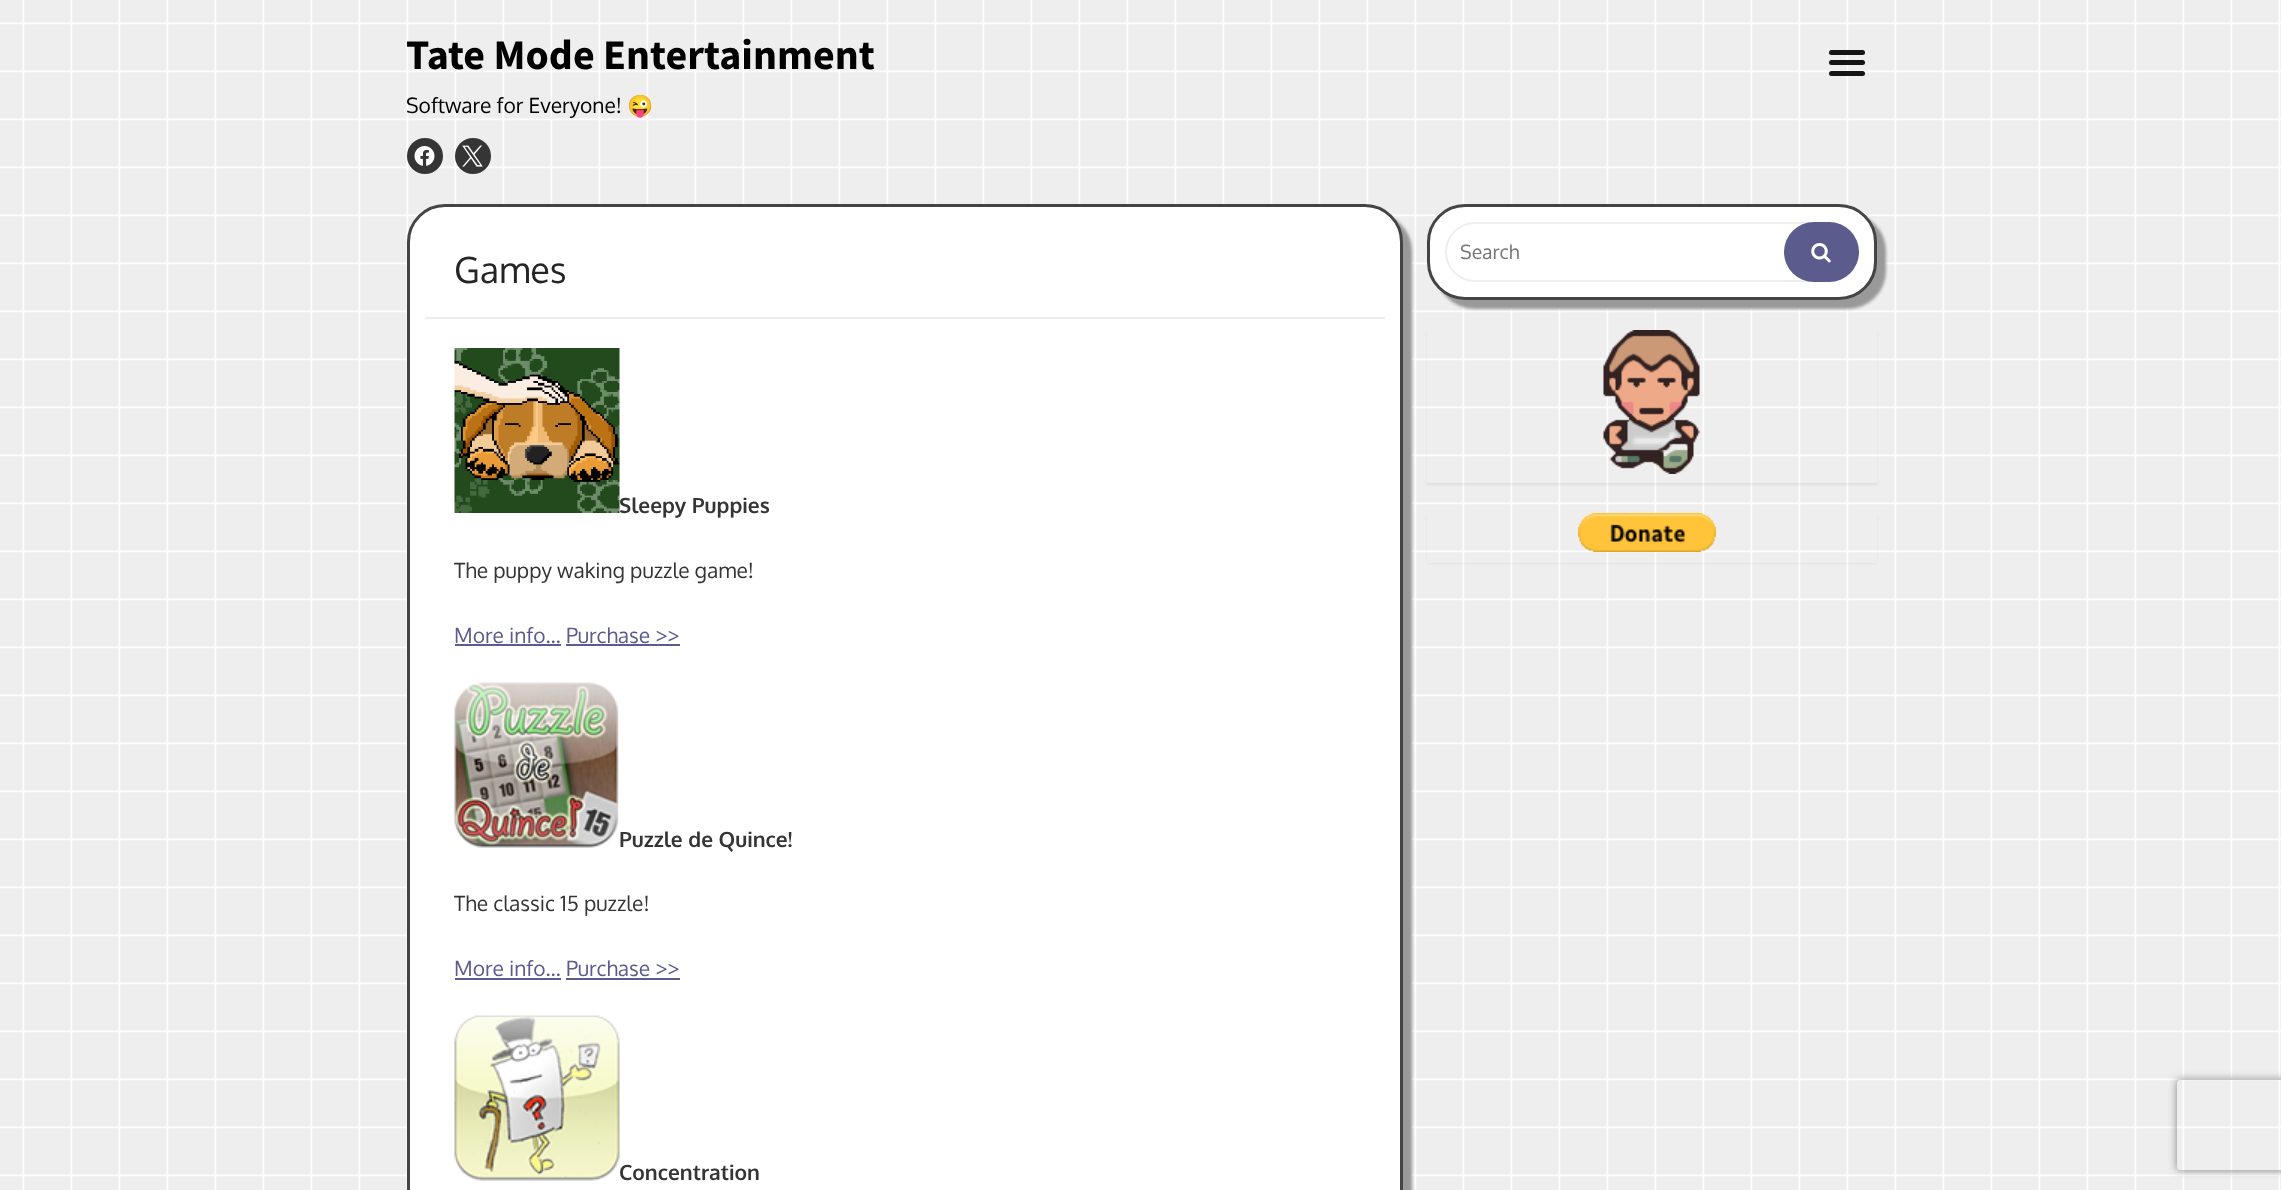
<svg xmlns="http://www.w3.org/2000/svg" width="2281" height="1190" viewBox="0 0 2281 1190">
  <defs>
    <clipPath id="clip1"><path d="M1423 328H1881V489H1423ZM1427 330H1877V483H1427Z" clip-rule="evenodd"/></clipPath>
    <clipPath id="clip2"><path d="M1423 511H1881V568H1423ZM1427 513H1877V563H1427Z" clip-rule="evenodd"/></clipPath>
    <clipPath id="clip3"><path d="M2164 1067H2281V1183H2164ZM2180 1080H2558C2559.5 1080 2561 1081.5 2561 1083V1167C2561 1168.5 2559.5 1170 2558 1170H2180C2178.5 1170 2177 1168.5 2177 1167V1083C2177 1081.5 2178.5 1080 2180 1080Z" clip-rule="evenodd"/></clipPath>
  </defs>
  <rect width="100%" height="100%" fill="rgb(238,238,238)"/>
  <image x="0" y="0" width="2281" height="1190" href="pic1.png"/>
  <text x="406" y="69" font-family="Source Sans Pro" font-size="42" font-weight="bold" fill="rgb(0,0,0)">Tate Mode Entertainment</text>
  <text x="406" y="113" font-family="Oxygen" font-size="21" fill="rgb(0,0,0)">Software for Everyone!</text>
  <text x="627" y="113" font-family="Noto Color Emoji" font-size="21" fill="rgb(0,0,0)">😜</text>
  <circle cx="425" cy="156" r="18" fill="rgb(53,53,53)"/>
  <image x="414" y="146" width="21" height="20" href="pic2.png"/>
  <circle cx="473" cy="156" r="18" fill="rgb(53,53,53)"/>
  <image x="462" y="145" width="21" height="22" href="pic3.png"/>
  <rect x="1829" y="60" width="36" height="5" rx="2.5" fill="rgb(21,21,21)"/>
  <rect x="1829" y="50" width="36" height="5" rx="2.5" fill="rgb(21,21,21)"/>
  <rect x="1829" y="71" width="36" height="5" rx="2.5" fill="rgb(21,21,21)"/>
  <rect x="1436" y="213" width="450" height="96" rx="38" fill="rgb(153,153,153)" filter="blur(1.5px)"/>
  <rect x="1428.5" y="205.5" width="447" height="93" rx="36.5" fill="rgb(255,255,255)" stroke="rgb(68,68,68)" stroke-width="3"/>
  <rect x="1446" y="223" width="412" height="58" rx="29" fill="none" stroke="rgb(238,238,238)" stroke-width="2"/>
  <text x="1460" y="259" font-family="Oxygen" font-size="19.5" fill="rgb(117,117,117)">Search</text>
  <rect x="1784" y="222" width="75" height="60" rx="30" fill="rgb(91,91,142)"/>
  <image x="1811" y="243" width="20" height="20" href="pic4.png"/>
  <g clip-path="url(#clip1)">
    <rect x="1427" y="332" width="450" height="153" fill="rgba(0,0,0,0.06)" filter="blur(1px)"/>
  </g>
  <image x="1603" y="330" width="97" height="144" href="pic5.png"/>
  <g clip-path="url(#clip2)">
    <rect x="1427" y="515" width="450" height="49" fill="rgba(0,0,0,0.06)" filter="blur(1px)"/>
  </g>
  <image x="1578" y="513" width="138" height="39" href="pic6.png"/>
  <rect x="416" y="213" width="996" height="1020" rx="38" fill="rgb(153,153,153)" filter="blur(1.5px)"/>
  <rect x="408.5" y="205.5" width="993" height="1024" rx="36.5" fill="rgb(255,255,255)" stroke="rgb(68,68,68)" stroke-width="3"/>
  <rect x="425" y="317" width="960" height="2" fill="rgb(237,237,237)"/>
  <text x="454" y="283" font-family="Oxygen" font-size="36" fill="rgb(37,37,37)">Games</text>
  <image x="454" y="348" width="166" height="165" href="pic7.png"/>
  <text x="619" y="513" font-family="Oxygen" font-size="21" font-weight="bold" fill="rgb(53,53,53)">Sleepy Puppies</text>
  <text x="454" y="578" font-family="Oxygen" font-size="21" fill="rgb(53,53,53)">The puppy waking puzzle game!</text>
  <text x="454" y="643" font-family="Oxygen" font-size="21" fill="rgb(91,91,142)">More info… Purchase &gt;&gt;</text>
  <rect x="455" y="644" width="106" height="2" fill="rgb(91,91,142)"/>
  <rect x="566" y="644" width="114" height="2" fill="rgb(91,91,142)"/>
  <image x="454" y="682" width="165" height="166" href="pic8.png"/>
  <text x="619" y="847" font-family="Oxygen" font-size="21" font-weight="bold" fill="rgb(53,53,53)">Puzzle de Quince!</text>
  <text x="454" y="911" font-family="Oxygen" font-size="21" fill="rgb(53,53,53)">The classic 15 puzzle!</text>
  <text x="454" y="976" font-family="Oxygen" font-size="21" fill="rgb(91,91,142)">More info… Purchase &gt;&gt;</text>
  <rect x="455" y="978" width="106" height="2" fill="rgb(91,91,142)"/>
  <rect x="566" y="978" width="114" height="2" fill="rgb(91,91,142)"/>
  <image x="454" y="1015" width="166" height="166" href="pic9.png"/>
  <text x="619" y="1180" font-family="Oxygen" font-size="21" font-weight="bold" fill="rgb(53,53,53)">Concentration</text>
  <g clip-path="url(#clip3)">
    <rect x="2177" y="1080" width="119" height="90" rx="3" fill="rgb(128,128,128)" filter="blur(4px)"/>
  </g>
</svg>
